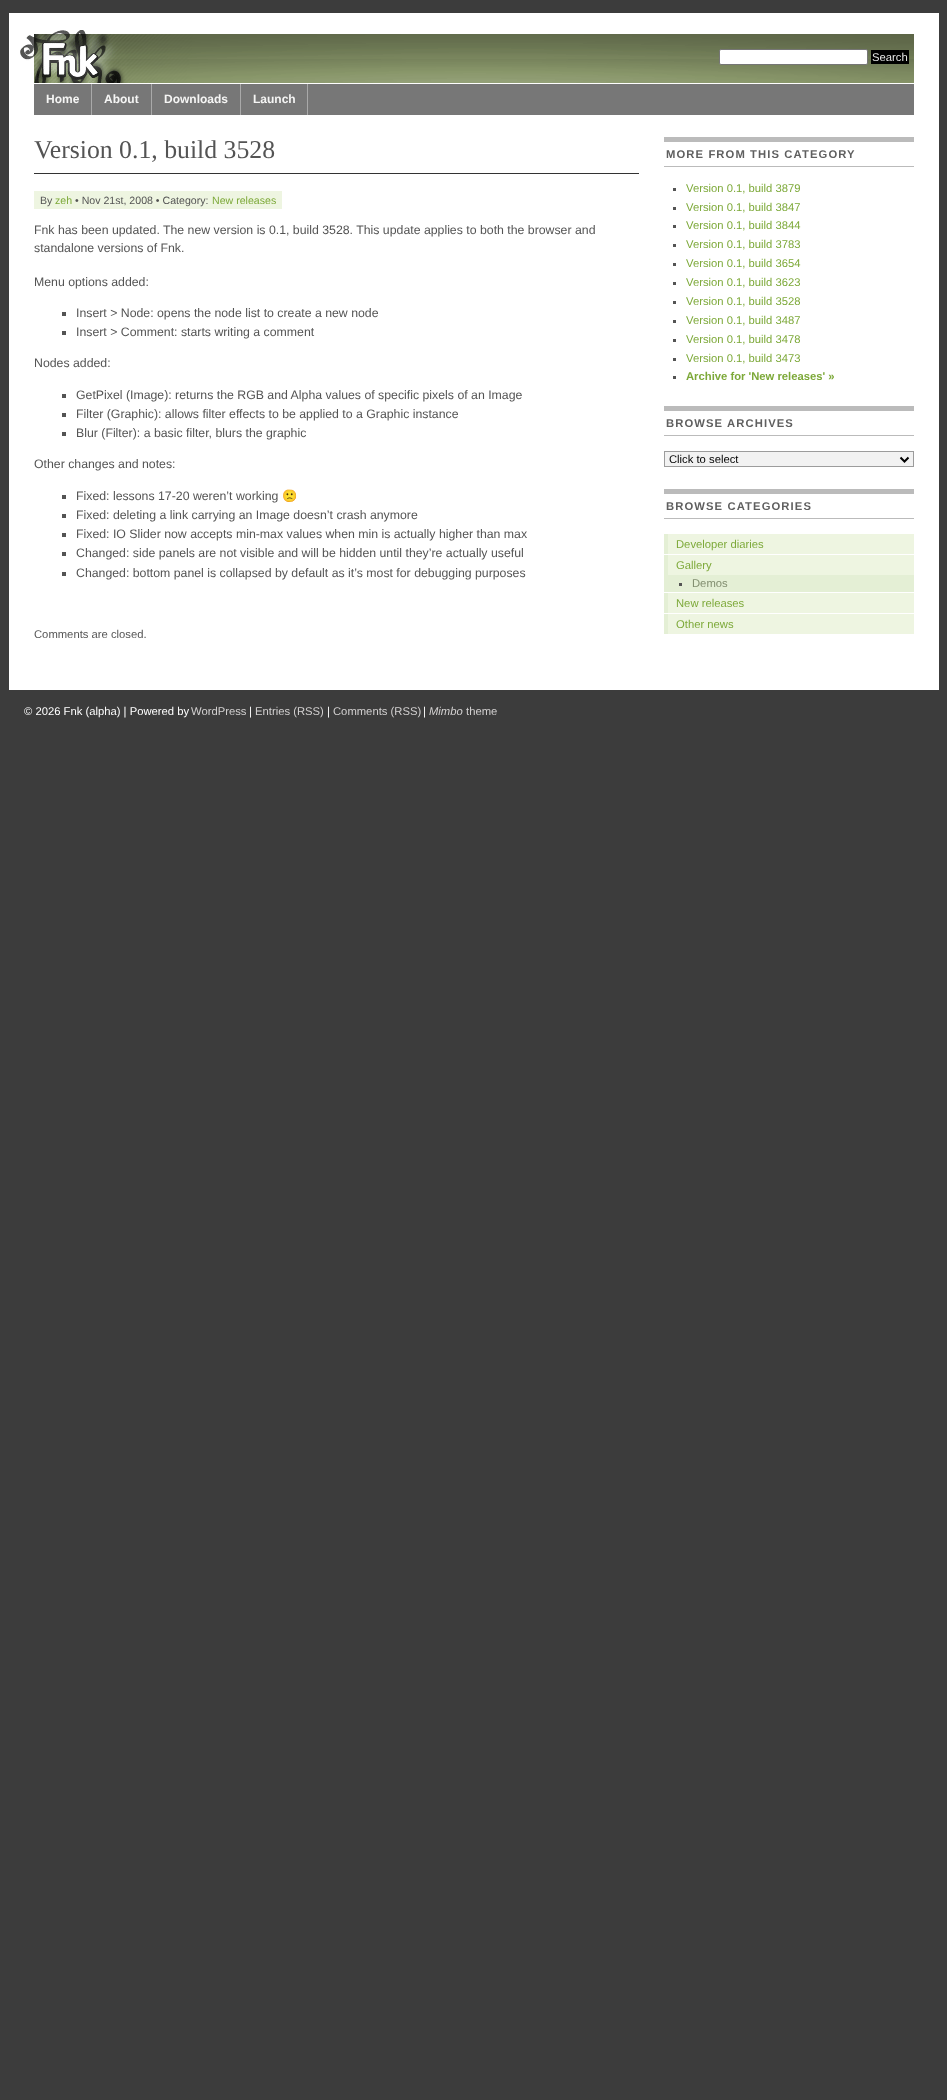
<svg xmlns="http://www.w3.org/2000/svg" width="947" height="2100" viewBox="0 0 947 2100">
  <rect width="100%" height="100%" fill="rgb(60,60,60)"/>
  <rect x="9" y="13" width="930" height="677" fill="rgb(255,255,255)"/>
  <image x="20" y="30" width="894" height="53" href="pic1.png"/>
  <rect x="719.5" y="49.5" width="148" height="15" rx="1.5" fill="rgb(255,255,255)" stroke="rgb(118,118,118)"/>
  <rect x="871" y="50" width="38" height="14" fill="rgb(0,0,0)"/>
  <text x="872" y="61" font-family="Liberation Sans" font-size="11.25" fill="rgb(231,231,231)">Search</text>
  <rect x="34" y="84" width="880" height="31" fill="rgb(119,119,119)"/>
  <rect x="91" y="84" width="1" height="31" fill="rgb(169,169,169)"/>
  <text x="46" y="103" font-family="Liberation Sans" font-size="12" font-weight="bold" fill="rgb(245,245,244)">Home</text>
  <rect x="151" y="84" width="1" height="31" fill="rgb(169,169,169)"/>
  <text x="104" y="103" font-family="Liberation Sans" font-size="12" font-weight="bold" fill="rgb(245,245,244)">About</text>
  <rect x="240" y="84" width="1" height="31" fill="rgb(169,169,169)"/>
  <text x="164" y="103" font-family="Liberation Sans" font-size="12" font-weight="bold" fill="rgb(245,245,244)">Downloads</text>
  <rect x="307" y="84" width="1" height="31" fill="rgb(169,169,169)"/>
  <text x="253" y="103" font-family="Liberation Sans" font-size="12" font-weight="bold" fill="rgb(245,245,244)">Launch</text>
  <rect x="34" y="173" width="605" height="1" fill="rgb(51,51,51)"/>
  <text x="34" y="158" font-family="Liberation Serif" font-size="25.75" fill="rgb(84,84,84)">Version 0.1, build 3528</text>
  <rect x="34" y="191" width="248" height="18" fill="rgb(238,245,225)"/>
  <text x="40" y="204" font-family="Liberation Sans" font-size="10.6" fill="rgb(84,84,84)">By</text>
  <text x="55" y="204" font-family="Liberation Sans" font-size="10.6" fill="rgb(125,169,57)">zeh</text>
  <text x="75" y="204" font-family="Liberation Sans" font-size="10.6" fill="rgb(84,84,84)">• Nov 21st, 2008 • Category:</text>
  <text x="212" y="204" font-family="Liberation Sans" font-size="10.6" fill="rgb(125,169,57)">New releases</text>
  <g font-family="Liberation Sans" font-size="12.3" fill="rgb(84,84,84)">
    <text>
      <tspan x="34" y="234">Fnk has been updated. The new version is 0.1, build 3528. This update applies to both the browser and</tspan>
      <tspan x="34" y="252">standalone versions of Fnk.</tspan>
    </text>
    <text x="34" y="286">Menu options added:</text>
  </g>
  <rect x="62" y="312" width="4" height="4" fill="rgb(84,84,84)"/>
  <text x="76" y="317" font-family="Liberation Sans" font-size="12.3" fill="rgb(84,84,84)">Insert &gt; Node: opens the node list to create a new node</text>
  <rect x="62" y="331" width="4" height="4" fill="rgb(84,84,84)"/>
  <g font-family="Liberation Sans" font-size="12.3" fill="rgb(84,84,84)">
    <text x="76" y="336">Insert &gt; Comment: starts writing a comment</text>
    <text x="34" y="367">Nodes added:</text>
  </g>
  <rect x="62" y="394" width="4" height="4" fill="rgb(84,84,84)"/>
  <text x="76" y="399" font-family="Liberation Sans" font-size="12.3" fill="rgb(84,84,84)">GetPixel (Image): returns the RGB and Alpha values of specific pixels of an Image</text>
  <rect x="62" y="413" width="4" height="4" fill="rgb(84,84,84)"/>
  <text x="76" y="418" font-family="Liberation Sans" font-size="12.3" fill="rgb(84,84,84)">Filter (Graphic): allows filter effects to be applied to a Graphic instance</text>
  <rect x="62" y="432" width="4" height="4" fill="rgb(84,84,84)"/>
  <g font-family="Liberation Sans" font-size="12.3" fill="rgb(84,84,84)">
    <text x="76" y="437">Blur (Filter): a basic filter, blurs the graphic</text>
    <text x="34" y="468">Other changes and notes:</text>
  </g>
  <rect x="62" y="495" width="4" height="4" fill="rgb(84,84,84)"/>
  <text x="76" y="500" font-family="Liberation Sans" font-size="12.3" fill="rgb(84,84,84)">Fixed: lessons 17-20 weren’t working</text>
  <text x="282" y="500" font-family="Noto Color Emoji" font-size="12.3" fill="rgb(84,84,84)">🙁</text>
  <rect x="62" y="514" width="4" height="4" fill="rgb(84,84,84)"/>
  <text x="76" y="519" font-family="Liberation Sans" font-size="12.3" fill="rgb(84,84,84)">Fixed: deleting a link carrying an Image doesn’t crash anymore</text>
  <rect x="62" y="533" width="4" height="4" fill="rgb(84,84,84)"/>
  <text x="76" y="538" font-family="Liberation Sans" font-size="12.3" fill="rgb(84,84,84)">Fixed: IO Slider now accepts min-max values when min is actually higher than max</text>
  <rect x="62" y="552" width="4" height="4" fill="rgb(84,84,84)"/>
  <text x="76" y="557" font-family="Liberation Sans" font-size="12.3" fill="rgb(84,84,84)">Changed: side panels are not visible and will be hidden until they’re actually useful</text>
  <rect x="62" y="572" width="4" height="4" fill="rgb(84,84,84)"/>
  <text x="76" y="577" font-family="Liberation Sans" font-size="12.3" fill="rgb(84,84,84)">Changed: bottom panel is collapsed by default as it’s most for debugging purposes</text>
  <text x="34" y="638" font-family="Liberation Sans" font-size="11.25" fill="rgb(84,84,84)">Comments are closed.</text>
  <rect x="664" y="137" width="250" height="5" fill="rgb(187,187,187)"/>
  <rect x="664" y="166" width="250" height="1" fill="rgb(187,187,187)"/>
  <text x="666" y="158" font-family="Liberation Sans" font-size="11.25" font-weight="bold" letter-spacing="1.1" fill="rgb(95,95,95)">MORE FROM THIS CATEGORY</text>
  <rect x="673" y="188" width="3" height="3" fill="rgb(84,84,84)"/>
  <text x="686" y="192" font-family="Liberation Sans" font-size="11.25" fill="rgb(125,169,57)">Version 0.1, build 3879</text>
  <rect x="673" y="207" width="3" height="3" fill="rgb(84,84,84)"/>
  <text x="686" y="211" font-family="Liberation Sans" font-size="11.25" fill="rgb(125,169,57)">Version 0.1, build 3847</text>
  <rect x="673" y="225" width="3" height="3" fill="rgb(84,84,84)"/>
  <text x="686" y="229" font-family="Liberation Sans" font-size="11.25" fill="rgb(125,169,57)">Version 0.1, build 3844</text>
  <rect x="673" y="244" width="3" height="3" fill="rgb(84,84,84)"/>
  <text x="686" y="248" font-family="Liberation Sans" font-size="11.25" fill="rgb(125,169,57)">Version 0.1, build 3783</text>
  <rect x="673" y="263" width="3" height="3" fill="rgb(84,84,84)"/>
  <text x="686" y="267" font-family="Liberation Sans" font-size="11.25" fill="rgb(125,169,57)">Version 0.1, build 3654</text>
  <rect x="673" y="282" width="3" height="3" fill="rgb(84,84,84)"/>
  <text x="686" y="286" font-family="Liberation Sans" font-size="11.25" fill="rgb(125,169,57)">Version 0.1, build 3623</text>
  <rect x="673" y="301" width="3" height="3" fill="rgb(84,84,84)"/>
  <text x="686" y="305" font-family="Liberation Sans" font-size="11.25" fill="rgb(125,169,57)">Version 0.1, build 3528</text>
  <rect x="673" y="320" width="3" height="3" fill="rgb(84,84,84)"/>
  <text x="686" y="324" font-family="Liberation Sans" font-size="11.25" fill="rgb(125,169,57)">Version 0.1, build 3487</text>
  <rect x="673" y="339" width="3" height="3" fill="rgb(84,84,84)"/>
  <text x="686" y="343" font-family="Liberation Sans" font-size="11.25" fill="rgb(125,169,57)">Version 0.1, build 3478</text>
  <rect x="673" y="358" width="3" height="3" fill="rgb(84,84,84)"/>
  <text x="686" y="362" font-family="Liberation Sans" font-size="11.25" fill="rgb(125,169,57)">Version 0.1, build 3473</text>
  <rect x="673" y="376" width="3" height="3" fill="rgb(84,84,84)"/>
  <text x="686" y="380" font-family="Liberation Sans" font-size="11.25" font-weight="bold" fill="rgb(125,169,57)">Archive for 'New releases' »</text>
  <rect x="664" y="406" width="250" height="5" fill="rgb(187,187,187)"/>
  <rect x="664" y="435" width="250" height="1" fill="rgb(187,187,187)"/>
  <text x="666" y="427" font-family="Liberation Sans" font-size="11.25" font-weight="bold" letter-spacing="1.1" fill="rgb(95,95,95)">BROWSE ARCHIVES</text>
  <rect x="664.5" y="451.5" width="249" height="15" fill="rgb(242,242,242)" stroke="rgb(156,156,156)"/>
  <path d="M900.5 457.5L904.5 461.5L908.5 457.5" fill="none" stroke="rgb(0,0,0)" stroke-width="2"/>
  <text x="669" y="463" font-family="Liberation Sans" font-size="11.25" fill="rgb(0,0,0)">Click to select</text>
  <rect x="664" y="489" width="250" height="5" fill="rgb(187,187,187)"/>
  <rect x="664" y="518" width="250" height="1" fill="rgb(187,187,187)"/>
  <text x="666" y="510" font-family="Liberation Sans" font-size="11.25" font-weight="bold" letter-spacing="1.1" fill="rgb(95,95,95)">BROWSE CATEGORIES</text>
  <rect x="668" y="534" width="246" height="20" fill="rgb(238,245,225)"/>
  <rect x="664" y="534" width="4" height="20" fill="rgb(228,239,213)"/>
  <text x="676" y="548" font-family="Liberation Sans" font-size="11.25" fill="rgb(125,169,57)">Developer diaries</text>
  <rect x="668" y="555" width="246" height="20" fill="rgb(238,245,225)"/>
  <rect x="664" y="555" width="4" height="20" fill="rgb(228,239,213)"/>
  <text x="676" y="569" font-family="Liberation Sans" font-size="11.25" fill="rgb(125,169,57)">Gallery</text>
  <rect x="664" y="575" width="250" height="17" fill="rgb(228,239,213)"/>
  <rect x="679" y="583" width="3" height="3" fill="rgb(84,84,84)"/>
  <text x="692" y="587" font-family="Liberation Sans" font-size="11.25" fill="rgb(129,141,111)">Demos</text>
  <rect x="668" y="593" width="246" height="20" fill="rgb(238,245,225)"/>
  <rect x="664" y="593" width="4" height="20" fill="rgb(228,239,213)"/>
  <text x="676" y="607" font-family="Liberation Sans" font-size="11.25" fill="rgb(125,169,57)">New releases</text>
  <rect x="668" y="614" width="246" height="20" fill="rgb(238,245,225)"/>
  <rect x="664" y="614" width="4" height="20" fill="rgb(228,239,213)"/>
  <text x="676" y="628" font-family="Liberation Sans" font-size="11.25" fill="rgb(125,169,57)">Other news</text>
  <text x="24" y="715" font-family="Liberation Sans" font-size="11.25" fill="rgb(255,255,255)">© 2026 Fnk (alpha) | Powered by</text>
  <text x="191" y="715" font-family="Liberation Sans" font-size="11.25" fill="rgb(211,209,209)">WordPress</text>
  <text x="249" y="715" font-family="Liberation Sans" font-size="11.25" fill="rgb(255,255,255)">|</text>
  <text x="255" y="715" font-family="Liberation Sans" font-size="11.25" fill="rgb(211,209,209)">Entries (RSS)</text>
  <text x="327" y="715" font-family="Liberation Sans" font-size="11.25" fill="rgb(255,255,255)">|</text>
  <text x="333" y="715" font-family="Liberation Sans" font-size="11.25" fill="rgb(211,209,209)">Comments (RSS)</text>
  <text x="423" y="715" font-family="Liberation Sans" font-size="11.25" fill="rgb(255,255,255)">|</text>
  <text x="429" y="715" font-family="Liberation Sans" font-size="11.25" font-style="italic" fill="rgb(211,209,209)">Mimbo</text>
  <text x="466" y="715" font-family="Liberation Sans" font-size="11.25" fill="rgb(211,209,209)">theme</text>
</svg>
